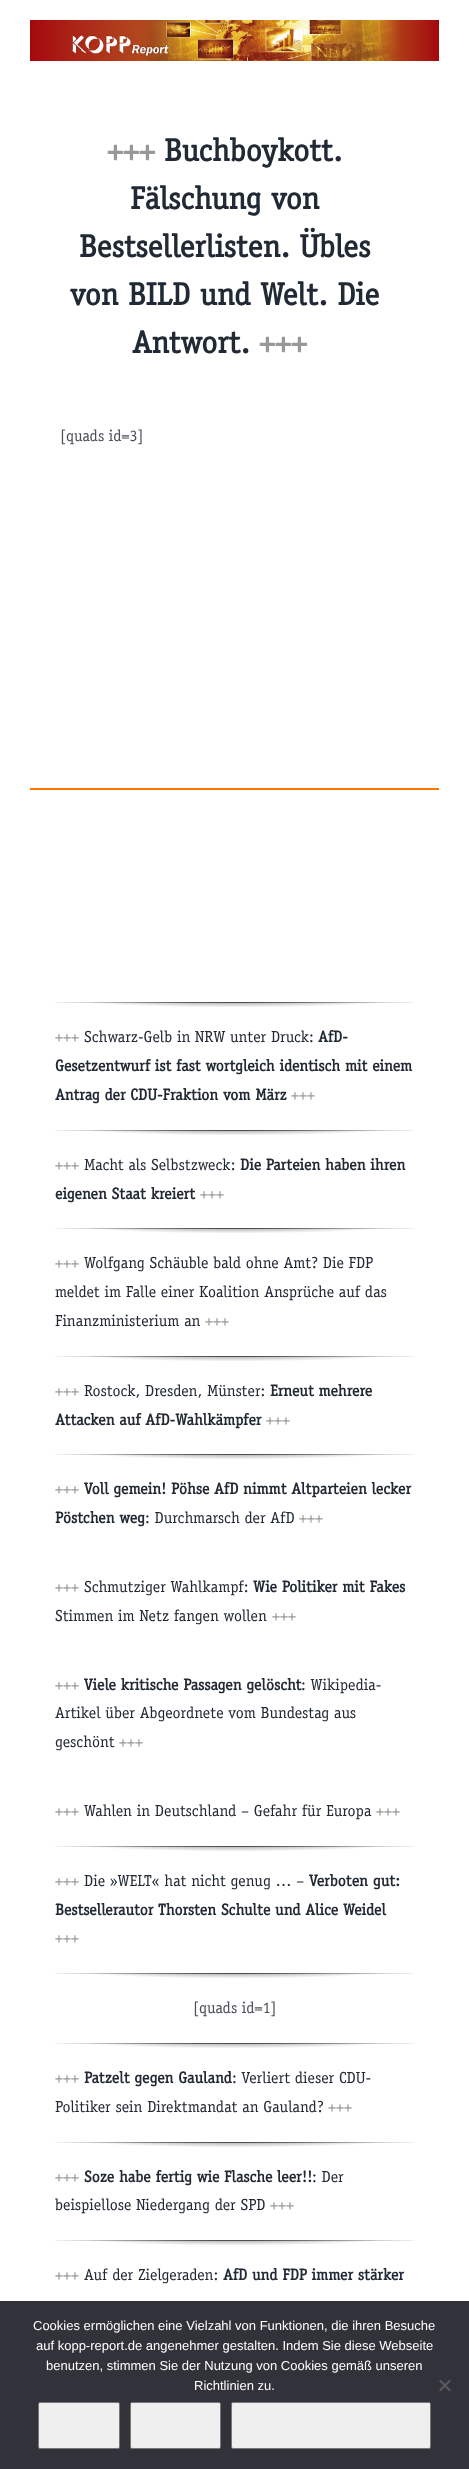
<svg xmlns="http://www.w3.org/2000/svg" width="469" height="2469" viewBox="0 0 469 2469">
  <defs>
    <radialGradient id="g1" gradientUnits="userSpaceOnUse" cx="0" cy="0" r="1" gradientTransform="matrix(254 0 0 2.1 235 1002)"><stop offset="0" stop-color="rgb(51,51,51)"/><stop offset="0.8" stop-color="rgb(255,255,255)"/></radialGradient>
    <radialGradient id="g2" gradientUnits="userSpaceOnUse" cx="0" cy="0" r="1" gradientTransform="matrix(254 0 0 13 235 999)"><stop offset="0" stop-color="rgb(0,0,0)" stop-opacity="0.5"/><stop offset="0.65" stop-color="rgb(0,0,0)" stop-opacity="0"/></radialGradient>
    <radialGradient id="g3" gradientUnits="userSpaceOnUse" cx="0" cy="0" r="1" gradientTransform="matrix(254 0 0 2.1 235 1130)"><stop offset="0" stop-color="rgb(51,51,51)"/><stop offset="0.8" stop-color="rgb(255,255,255)"/></radialGradient>
    <radialGradient id="g4" gradientUnits="userSpaceOnUse" cx="0" cy="0" r="1" gradientTransform="matrix(254 0 0 13 235 1127)"><stop offset="0" stop-color="rgb(0,0,0)" stop-opacity="0.5"/><stop offset="0.65" stop-color="rgb(0,0,0)" stop-opacity="0"/></radialGradient>
    <radialGradient id="g5" gradientUnits="userSpaceOnUse" cx="0" cy="0" r="1" gradientTransform="matrix(254 0 0 2.1 235 1228)"><stop offset="0" stop-color="rgb(51,51,51)"/><stop offset="0.8" stop-color="rgb(255,255,255)"/></radialGradient>
    <radialGradient id="g6" gradientUnits="userSpaceOnUse" cx="0" cy="0" r="1" gradientTransform="matrix(254 0 0 13 235 1225)"><stop offset="0" stop-color="rgb(0,0,0)" stop-opacity="0.5"/><stop offset="0.65" stop-color="rgb(0,0,0)" stop-opacity="0"/></radialGradient>
    <radialGradient id="g7" gradientUnits="userSpaceOnUse" cx="0" cy="0" r="1" gradientTransform="matrix(254 0 0 2.1 235 1356)"><stop offset="0" stop-color="rgb(51,51,51)"/><stop offset="0.8" stop-color="rgb(255,255,255)"/></radialGradient>
    <radialGradient id="g8" gradientUnits="userSpaceOnUse" cx="0" cy="0" r="1" gradientTransform="matrix(254 0 0 13 235 1353)"><stop offset="0" stop-color="rgb(0,0,0)" stop-opacity="0.5"/><stop offset="0.65" stop-color="rgb(0,0,0)" stop-opacity="0"/></radialGradient>
    <radialGradient id="g9" gradientUnits="userSpaceOnUse" cx="0" cy="0" r="1" gradientTransform="matrix(254 0 0 2.1 235 1454)"><stop offset="0" stop-color="rgb(51,51,51)"/><stop offset="0.8" stop-color="rgb(255,255,255)"/></radialGradient>
    <radialGradient id="g10" gradientUnits="userSpaceOnUse" cx="0" cy="0" r="1" gradientTransform="matrix(254 0 0 13 235 1451)"><stop offset="0" stop-color="rgb(0,0,0)" stop-opacity="0.5"/><stop offset="0.65" stop-color="rgb(0,0,0)" stop-opacity="0"/></radialGradient>
    <radialGradient id="g11" gradientUnits="userSpaceOnUse" cx="0" cy="0" r="1" gradientTransform="matrix(254 0 0 2.1 235 1846)"><stop offset="0" stop-color="rgb(51,51,51)"/><stop offset="0.8" stop-color="rgb(255,255,255)"/></radialGradient>
    <radialGradient id="g12" gradientUnits="userSpaceOnUse" cx="0" cy="0" r="1" gradientTransform="matrix(254 0 0 13 235 1843)"><stop offset="0" stop-color="rgb(0,0,0)" stop-opacity="0.5"/><stop offset="0.65" stop-color="rgb(0,0,0)" stop-opacity="0"/></radialGradient>
    <radialGradient id="g13" gradientUnits="userSpaceOnUse" cx="0" cy="0" r="1" gradientTransform="matrix(254 0 0 2.1 235 1973)"><stop offset="0" stop-color="rgb(51,51,51)"/><stop offset="0.8" stop-color="rgb(255,255,255)"/></radialGradient>
    <radialGradient id="g14" gradientUnits="userSpaceOnUse" cx="0" cy="0" r="1" gradientTransform="matrix(254 0 0 13 235 1970)"><stop offset="0" stop-color="rgb(0,0,0)" stop-opacity="0.5"/><stop offset="0.65" stop-color="rgb(0,0,0)" stop-opacity="0"/></radialGradient>
    <radialGradient id="g15" gradientUnits="userSpaceOnUse" cx="0" cy="0" r="1" gradientTransform="matrix(254 0 0 2.1 235 2043)"><stop offset="0" stop-color="rgb(51,51,51)"/><stop offset="0.8" stop-color="rgb(255,255,255)"/></radialGradient>
    <radialGradient id="g16" gradientUnits="userSpaceOnUse" cx="0" cy="0" r="1" gradientTransform="matrix(254 0 0 13 235 2040)"><stop offset="0" stop-color="rgb(0,0,0)" stop-opacity="0.5"/><stop offset="0.65" stop-color="rgb(0,0,0)" stop-opacity="0"/></radialGradient>
    <radialGradient id="g17" gradientUnits="userSpaceOnUse" cx="0" cy="0" r="1" gradientTransform="matrix(254 0 0 2.1 235 2142)"><stop offset="0" stop-color="rgb(51,51,51)"/><stop offset="0.8" stop-color="rgb(255,255,255)"/></radialGradient>
    <radialGradient id="g18" gradientUnits="userSpaceOnUse" cx="0" cy="0" r="1" gradientTransform="matrix(254 0 0 13 235 2139)"><stop offset="0" stop-color="rgb(0,0,0)" stop-opacity="0.5"/><stop offset="0.65" stop-color="rgb(0,0,0)" stop-opacity="0"/></radialGradient>
    <radialGradient id="g19" gradientUnits="userSpaceOnUse" cx="0" cy="0" r="1" gradientTransform="matrix(254 0 0 2.1 235 2240)"><stop offset="0" stop-color="rgb(51,51,51)"/><stop offset="0.8" stop-color="rgb(255,255,255)"/></radialGradient>
    <radialGradient id="g20" gradientUnits="userSpaceOnUse" cx="0" cy="0" r="1" gradientTransform="matrix(254 0 0 13 235 2237)"><stop offset="0" stop-color="rgb(0,0,0)" stop-opacity="0.5"/><stop offset="0.65" stop-color="rgb(0,0,0)" stop-opacity="0"/></radialGradient>
  </defs>
  <rect width="100%" height="100%" fill="rgb(255,255,255)"/>
  <image x="30" y="20" width="409" height="41" href="pic1.png"/>
  <text x="107" y="161" font-family="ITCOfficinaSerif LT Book" font-size="32" font-weight="bold" fill="rgb(153,153,153)">+++</text>
  <g font-family="ITCOfficinaSerif LT Book" font-size="32" font-weight="bold" fill="rgb(33,41,52)">
    <text x="164" y="161">Buchboykott.</text>
    <text x="130" y="209">Fälschung von</text>
    <text x="79" y="257">Bestsellerlisten. Übles</text>
    <text x="70" y="305">von BILD und Welt. Die</text>
    <text x="132" y="353">Antwort.</text>
  </g>
  <text x="259" y="353" font-family="ITCOfficinaSerif LT Book" font-size="32" font-weight="bold" fill="rgb(153,153,153)">+++</text>
  <text x="60" y="441" font-family="ITCOfficinaSerif LT Book" font-size="16" fill="rgb(74,78,87)">[quads id=3]</text>
  <rect x="30" y="788" width="409" height="2" fill="rgb(255,117,0)"/>
  <rect x="55" y="1002" width="359" height="1" fill="url(#g1)"/>
  <rect x="93" y="1002" width="284" height="5" fill="url(#g2)"/>
  <text x="55" y="1042" font-family="ITCOfficinaSerif LT Book" font-size="16" fill="rgb(153,153,153)">+++</text>
  <text x="84" y="1042" font-family="ITCOfficinaSerif LT Book" font-size="16" fill="rgb(33,41,52)">Schwarz-Gelb in NRW unter Druck:</text>
  <g font-family="ITCOfficinaSerif LT Book" font-size="16" font-weight="bold" fill="rgb(33,41,52)">
    <text x="318" y="1042">AfD-</text>
    <text>
      <tspan x="55" y="1071">Gesetzentwurf ist fast wortgleich identisch mit einem</tspan>
      <tspan x="55" y="1100">Antrag der CDU-Fraktion vom März</tspan>
    </text>
  </g>
  <text x="291" y="1100" font-family="ITCOfficinaSerif LT Book" font-size="16" fill="rgb(153,153,153)">+++</text>
  <rect x="55" y="1130" width="359" height="1" fill="url(#g3)"/>
  <rect x="93" y="1130" width="284" height="5" fill="url(#g4)"/>
  <text x="55" y="1170" font-family="ITCOfficinaSerif LT Book" font-size="16" fill="rgb(153,153,153)">+++</text>
  <text x="84" y="1170" font-family="ITCOfficinaSerif LT Book" font-size="16" fill="rgb(33,41,52)">Macht als Selbstzweck:</text>
  <g font-family="ITCOfficinaSerif LT Book" font-size="16" font-weight="bold" fill="rgb(33,41,52)">
    <text x="240" y="1170">Die Parteien haben ihren</text>
    <text x="55" y="1199">eigenen Staat kreiert</text>
  </g>
  <text x="200" y="1199" font-family="ITCOfficinaSerif LT Book" font-size="16" fill="rgb(153,153,153)">+++</text>
  <rect x="55" y="1228" width="359" height="1" fill="url(#g5)"/>
  <rect x="93" y="1228" width="284" height="5" fill="url(#g6)"/>
  <text x="55" y="1268" font-family="ITCOfficinaSerif LT Book" font-size="16" fill="rgb(153,153,153)">+++</text>
  <g font-family="ITCOfficinaSerif LT Book" font-size="16" fill="rgb(33,41,52)">
    <text x="84" y="1268">Wolfgang Schäuble bald ohne Amt? Die FDP</text>
    <text>
      <tspan x="55" y="1297">meldet im Falle einer Koalition Ansprüche auf das</tspan>
      <tspan x="55" y="1326">Finanzministerium an</tspan>
    </text>
  </g>
  <text x="205" y="1326" font-family="ITCOfficinaSerif LT Book" font-size="16" fill="rgb(153,153,153)">+++</text>
  <rect x="55" y="1356" width="359" height="1" fill="url(#g7)"/>
  <rect x="93" y="1356" width="284" height="5" fill="url(#g8)"/>
  <text x="55" y="1396" font-family="ITCOfficinaSerif LT Book" font-size="16" fill="rgb(153,153,153)">+++</text>
  <text x="84" y="1396" font-family="ITCOfficinaSerif LT Book" font-size="16" fill="rgb(33,41,52)">Rostock, Dresden, Münster:</text>
  <g font-family="ITCOfficinaSerif LT Book" font-size="16" font-weight="bold" fill="rgb(33,41,52)">
    <text x="270" y="1396">Erneut mehrere</text>
    <text x="55" y="1425">Attacken auf AfD-Wahlkämpfer</text>
  </g>
  <text x="266" y="1425" font-family="ITCOfficinaSerif LT Book" font-size="16" fill="rgb(153,153,153)">+++</text>
  <rect x="55" y="1454" width="359" height="1" fill="url(#g9)"/>
  <rect x="93" y="1454" width="284" height="5" fill="url(#g10)"/>
  <text x="55" y="1494" font-family="ITCOfficinaSerif LT Book" font-size="16" fill="rgb(153,153,153)">+++</text>
  <g font-family="ITCOfficinaSerif LT Book" font-size="16" font-weight="bold" fill="rgb(33,41,52)">
    <text x="84" y="1494">Voll gemein! Pöhse AfD nimmt Altparteien lecker</text>
    <text x="55" y="1523">Pöstchen weg</text>
  </g>
  <text x="145" y="1523" font-family="ITCOfficinaSerif LT Book" font-size="16" fill="rgb(33,41,52)">: Durchmarsch der AfD</text>
  <g font-family="ITCOfficinaSerif LT Book" font-size="16" fill="rgb(153,153,153)">
    <text x="299" y="1523">+++</text>
    <text x="55" y="1592">+++</text>
  </g>
  <text x="84" y="1592" font-family="ITCOfficinaSerif LT Book" font-size="16" fill="rgb(33,41,52)">Schmutziger Wahlkampf:</text>
  <text x="253" y="1592" font-family="ITCOfficinaSerif LT Book" font-size="16" font-weight="bold" fill="rgb(33,41,52)">Wie Politiker mit Fakes</text>
  <text x="55" y="1621" font-family="ITCOfficinaSerif LT Book" font-size="16" fill="rgb(33,41,52)">Stimmen im Netz fangen wollen</text>
  <g font-family="ITCOfficinaSerif LT Book" font-size="16" fill="rgb(153,153,153)">
    <text x="272" y="1621">+++</text>
    <text x="55" y="1690">+++</text>
  </g>
  <text x="84" y="1690" font-family="ITCOfficinaSerif LT Book" font-size="16" font-weight="bold" fill="rgb(33,41,52)">Viele kritische Passagen gelöscht</text>
  <g font-family="ITCOfficinaSerif LT Book" font-size="16" fill="rgb(33,41,52)">
    <text x="301" y="1690">: Wikipedia-</text>
    <text>
      <tspan x="55" y="1718">Artikel über Abgeordnete vom Bundestag aus</tspan>
      <tspan x="55" y="1747">geschönt</tspan>
    </text>
  </g>
  <g font-family="ITCOfficinaSerif LT Book" font-size="16" fill="rgb(153,153,153)">
    <text x="119" y="1747">+++</text>
    <text x="55" y="1816">+++</text>
  </g>
  <text x="84" y="1816" font-family="ITCOfficinaSerif LT Book" font-size="16" fill="rgb(33,41,52)">Wahlen in Deutschland – Gefahr für Europa</text>
  <text x="376" y="1816" font-family="ITCOfficinaSerif LT Book" font-size="16" fill="rgb(153,153,153)">+++</text>
  <rect x="55" y="1846" width="359" height="1" fill="url(#g11)"/>
  <rect x="93" y="1846" width="284" height="5" fill="url(#g12)"/>
  <text x="55" y="1886" font-family="ITCOfficinaSerif LT Book" font-size="16" fill="rgb(153,153,153)">+++</text>
  <text x="84" y="1886" font-family="ITCOfficinaSerif LT Book" font-size="16" fill="rgb(33,41,52)">Die »WELT« hat nicht genug … –</text>
  <g font-family="ITCOfficinaSerif LT Book" font-size="16" font-weight="bold" fill="rgb(33,41,52)">
    <text x="309" y="1886">Verboten gut:</text>
    <text x="55" y="1915">Bestsellerautor Thorsten Schulte und Alice Weidel</text>
  </g>
  <text x="55" y="1943" font-family="ITCOfficinaSerif LT Book" font-size="16" fill="rgb(153,153,153)">+++</text>
  <rect x="55" y="1973" width="359" height="1" fill="url(#g13)"/>
  <rect x="93" y="1973" width="284" height="5" fill="url(#g14)"/>
  <text x="193" y="2013" font-family="ITCOfficinaSerif LT Book" font-size="16" fill="rgb(74,78,87)">[quads id=1]</text>
  <rect x="55" y="2043" width="359" height="1" fill="url(#g15)"/>
  <rect x="93" y="2043" width="284" height="5" fill="url(#g16)"/>
  <text x="55" y="2083" font-family="ITCOfficinaSerif LT Book" font-size="16" fill="rgb(153,153,153)">+++</text>
  <text x="84" y="2083" font-family="ITCOfficinaSerif LT Book" font-size="16" font-weight="bold" fill="rgb(33,41,52)">Patzelt gegen Gauland</text>
  <g font-family="ITCOfficinaSerif LT Book" font-size="16" fill="rgb(33,41,52)">
    <text x="232" y="2083">: Verliert dieser CDU-</text>
    <text x="55" y="2112">Politiker sein Direktmandat an Gauland?</text>
  </g>
  <text x="328" y="2112" font-family="ITCOfficinaSerif LT Book" font-size="16" fill="rgb(153,153,153)">+++</text>
  <rect x="55" y="2142" width="359" height="1" fill="url(#g17)"/>
  <rect x="93" y="2142" width="284" height="5" fill="url(#g18)"/>
  <text x="55" y="2182" font-family="ITCOfficinaSerif LT Book" font-size="16" fill="rgb(153,153,153)">+++</text>
  <text x="84" y="2182" font-family="ITCOfficinaSerif LT Book" font-size="16" font-weight="bold" fill="rgb(33,41,52)">Soze habe fertig wie Flasche leer!!</text>
  <g font-family="ITCOfficinaSerif LT Book" font-size="16" fill="rgb(33,41,52)">
    <text x="312" y="2182">: Der</text>
    <text x="55" y="2210">beispiellose Niedergang der SPD</text>
  </g>
  <text x="270" y="2210" font-family="ITCOfficinaSerif LT Book" font-size="16" fill="rgb(153,153,153)">+++</text>
  <rect x="55" y="2240" width="359" height="1" fill="url(#g19)"/>
  <rect x="93" y="2240" width="284" height="5" fill="url(#g20)"/>
  <text x="55" y="2280" font-family="ITCOfficinaSerif LT Book" font-size="16" fill="rgb(153,153,153)">+++</text>
  <text x="84" y="2280" font-family="ITCOfficinaSerif LT Book" font-size="16" fill="rgb(33,41,52)">Auf der Zielgeraden:</text>
  <text x="223" y="2280" font-family="ITCOfficinaSerif LT Book" font-size="16" font-weight="bold" fill="rgb(33,41,52)">AfD und FDP immer stärker</text>
  <rect x="0" y="2301" width="469" height="168" fill="rgb(50,50,58)"/>
  <g font-family="Liberation Sans" font-size="13" fill="rgb(255,255,255)">
    <text x="33" y="2330">Cookies ermöglichen eine Vielzahl von Funktionen, die ihren Besuche</text>
    <text x="36" y="2350">auf kopp-report.de angenehmer gestalten. Indem Sie diese Webseite</text>
    <text x="46" y="2370">benutzen, stimmen Sie der Nutzung von Cookies gemäß unseren</text>
    <text x="194" y="2390">Richtlinien zu.</text>
  </g>
  <path d="M449.5 2379.5L451 2381L440.5 2391.5L439 2390Z" fill="rgb(89,89,93)"/>
  <path d="M439 2381L440.5 2379.5L451 2390L449.5 2391.5Z" fill="rgb(89,89,93)"/>
  <rect x="38.5" y="2402.5" width="81" height="46" rx="1.5" fill="rgb(239,239,239)" stroke="rgb(118,118,118)"/>
  <rect x="130.5" y="2402.5" width="90" height="46" rx="1.5" fill="rgb(239,239,239)" stroke="rgb(118,118,118)"/>
  <rect x="231.5" y="2402.5" width="199" height="46" rx="1.5" fill="rgb(239,239,239)" stroke="rgb(118,118,118)"/>
</svg>
